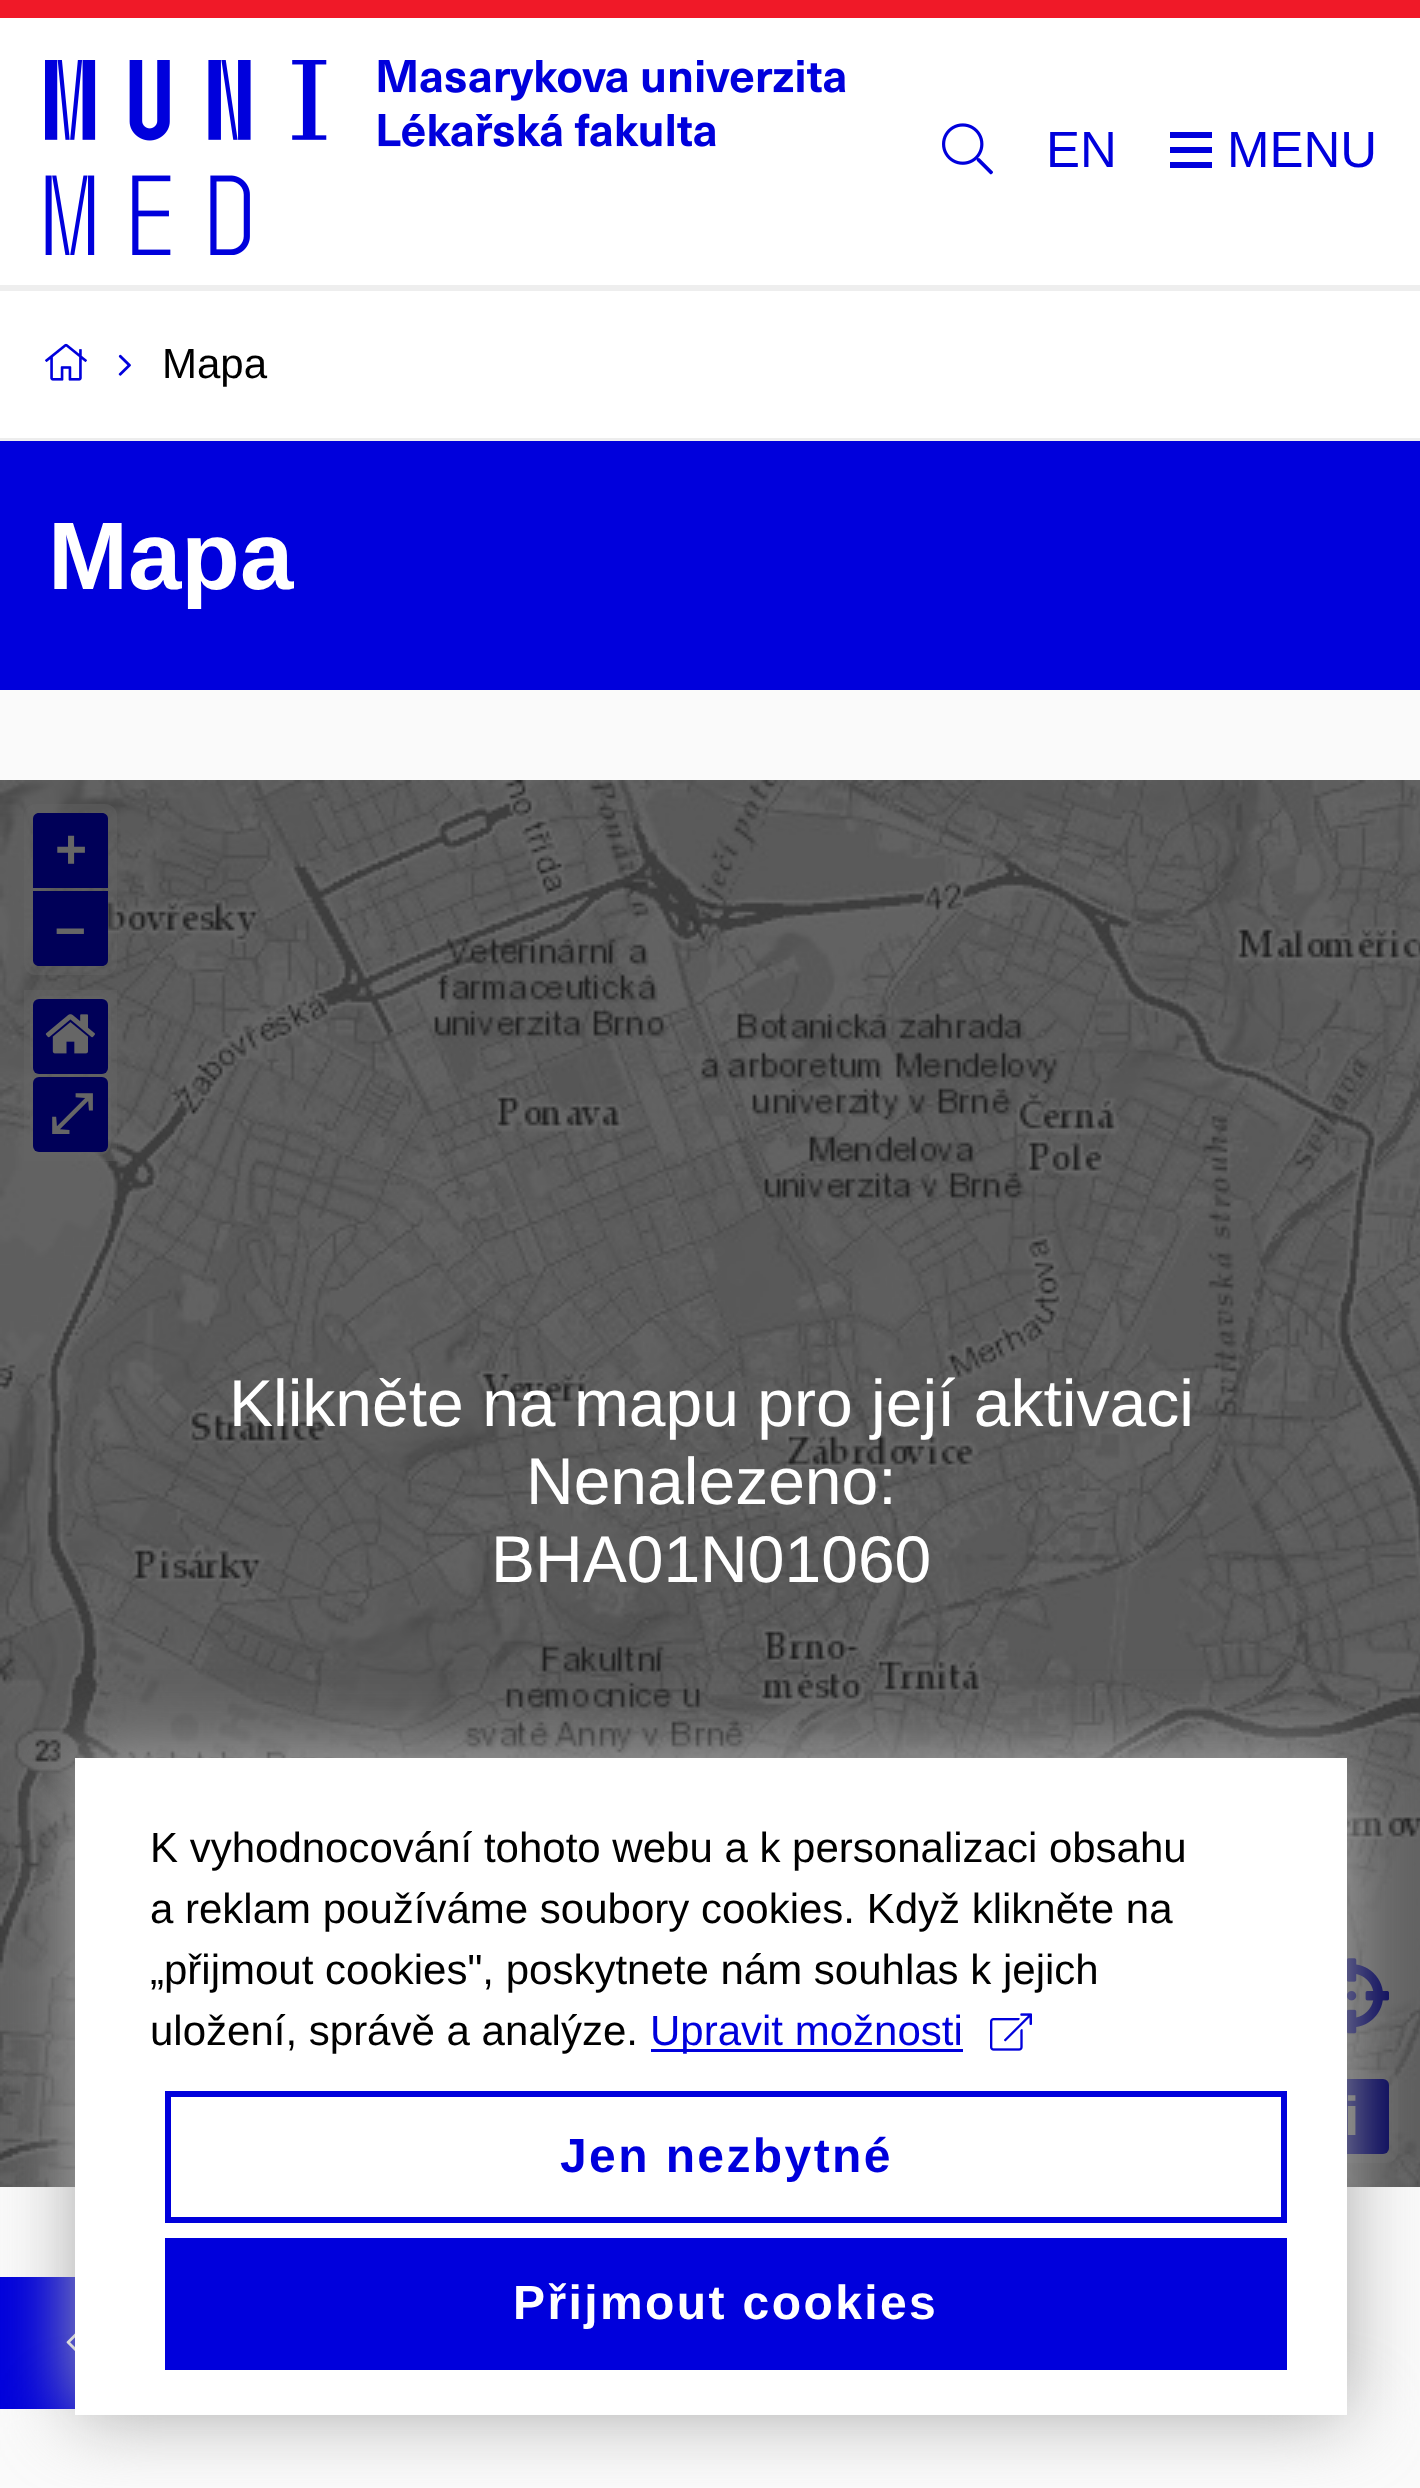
<svg xmlns="http://www.w3.org/2000/svg" width="1420" height="2488" viewBox="0 0 1420 2488">
  <rect width="100%" height="100%" fill="rgb(250,250,250)"/>
  <rect x="0" y="18" width="1420" height="267" fill="rgb(255,255,255)"/>
  <rect x="0" y="0" width="1420" height="18" fill="rgb(240,25,40)"/>
  <rect x="0" y="285" width="1420" height="6" fill="rgb(238,238,238)"/>
  <image x="45" y="60" width="801" height="195" href="pic1.png"/>
  <image x="942" y="123" width="51" height="52" href="pic2.png"/>
  <text x="1046" y="167" font-family="Liberation Sans" font-size="51" fill="rgb(0,0,220)">EN</text>
  <rect x="1170" y="132" width="42" height="6" fill="rgb(0,0,220)"/>
  <rect x="1170" y="147" width="42" height="6" fill="rgb(0,0,220)"/>
  <rect x="1170" y="162" width="42" height="6" fill="rgb(0,0,220)"/>
  <text x="1227" y="167" font-family="Liberation Sans" font-size="51" fill="rgb(0,0,220)">MENU</text>
  <rect x="0" y="291" width="1420" height="147" fill="rgb(255,255,255)"/>
  <rect x="0" y="438" width="1420" height="3" fill="rgb(237,237,237)"/>
  <image x="45" y="343" width="42" height="38" href="pic3.png"/>
  <image x="118" y="354" width="13" height="22" href="pic4.png"/>
  <text x="162" y="378" font-family="Liberation Sans" font-size="42" fill="rgb(0,0,0)">Mapa</text>
  <rect x="0" y="441" width="1420" height="249" fill="rgb(0,0,220)"/>
  <text x="48" y="589" font-family="Liberation Sans" font-size="96" font-weight="bold" fill="rgb(255,255,255)">Mapa</text>
  <image x="0" y="780" width="1420" height="1407" href="pic5.png"/>
  <rect x="24" y="804" width="93" height="171" rx="12" fill="rgba(102,102,102,0.4)"/>
  <path d="M39 813H102C105.5 813 108 815.5 108 819V888H33V819C33 815.5 35.5 813 39 813Z" fill="rgb(0,0,88)"/>
  <text x="55" y="868" font-family="Liberation Sans" font-size="55" font-weight="bold" fill="rgb(102,102,102)">+</text>
  <path d="M33 891H108V960C108 963.5 105.5 966 102 966H39C35.5 966 33 963.5 33 960Z" fill="rgb(0,0,88)"/>
  <text x="55" y="946" font-family="Liberation Sans" font-size="55" font-weight="bold" fill="rgb(102,102,102)">–</text>
  <rect x="1305" y="2070" width="93" height="93" rx="12" fill="rgba(102,102,102,0.4)"/>
  <rect x="1314" y="2079" width="75" height="75" rx="6" fill="rgb(0,0,88)"/>
  <text x="1344" y="2135" font-family="Liberation Sans" font-size="55" font-weight="bold" fill="rgb(102,102,102)">i</text>
  <rect x="24" y="990" width="93" height="171" fill="rgba(102,102,102,0.4)"/>
  <rect x="30" y="996" width="81" height="78" rx="12" fill="rgba(102,102,102,0.4)"/>
  <rect x="33" y="999" width="75" height="75" rx="6" fill="rgb(0,0,88)"/>
  <image x="45" y="1014" width="50" height="40" href="pic6.png"/>
  <rect x="30" y="1074" width="81" height="81" rx="12" fill="rgba(102,102,102,0.4)"/>
  <rect x="33" y="1077" width="75" height="75" rx="6" fill="rgb(0,0,88)"/>
  <text x="49" y="1132" font-family="FreeSerif" font-size="55" font-weight="bold" fill="rgb(102,102,102)">⤢</text>
  <image x="1347" y="1958" width="42" height="76" href="pic7.png"/>
  <g font-family="Liberation Sans" font-size="66" fill="rgb(255,255,255)">
    <text x="229" y="1426">Klikněte na mapu pro její aktivaci</text>
    <text x="526" y="1504">Nenalezeno:</text>
    <text x="491" y="1582">BHA01N01060</text>
  </g>
  <rect x="0" y="2277" width="75" height="132" fill="rgb(0,0,220)"/>
  <image x="66" y="2333" width="9" height="18" href="pic8.png"/>
  <rect x="75" y="1758" width="1272" height="657" fill="rgb(170,170,170)" filter="blur(37.5px)"/>
  <rect x="75" y="1758" width="1272" height="657" fill="rgb(255,255,255)"/>
  <g font-family="Liberation Sans" font-size="42" fill="rgb(0,0,0)">
    <text>
      <tspan x="150" y="1862">K vyhodnocování tohoto webu a k personalizaci obsahu</tspan>
      <tspan x="150" y="1923">a reklam používáme soubory cookies. Když klikněte na</tspan>
      <tspan x="150" y="1984">„přijmout cookies", poskytnete nám souhlas k jejich</tspan>
      <tspan x="150" y="2045">uložení, správě a analýze.</tspan>
    </text>
  </g>
  <rect x="651" y="2049" width="312" height="3" fill="rgb(0,0,220)"/>
  <text x="650" y="2045" font-family="Liberation Sans" font-size="42" fill="rgb(0,0,220)">Upravit možnosti</text>
  <image x="990" y="2013" width="42" height="38" href="pic9.png"/>
  <rect x="168" y="2094" width="1116" height="126" fill="none" stroke="rgb(0,0,220)" stroke-width="6"/>
  <text x="560" y="2172" font-family="Liberation Sans" font-size="48" font-weight="bold" letter-spacing="2.4" fill="rgb(0,0,220)">Jen nezbytné</text>
  <rect x="165" y="2238" width="1122" height="132" fill="rgb(0,0,220)"/>
  <text x="513" y="2319" font-family="Liberation Sans" font-size="48" font-weight="bold" letter-spacing="2.4" fill="rgb(255,255,255)">Přijmout cookies</text>
</svg>
